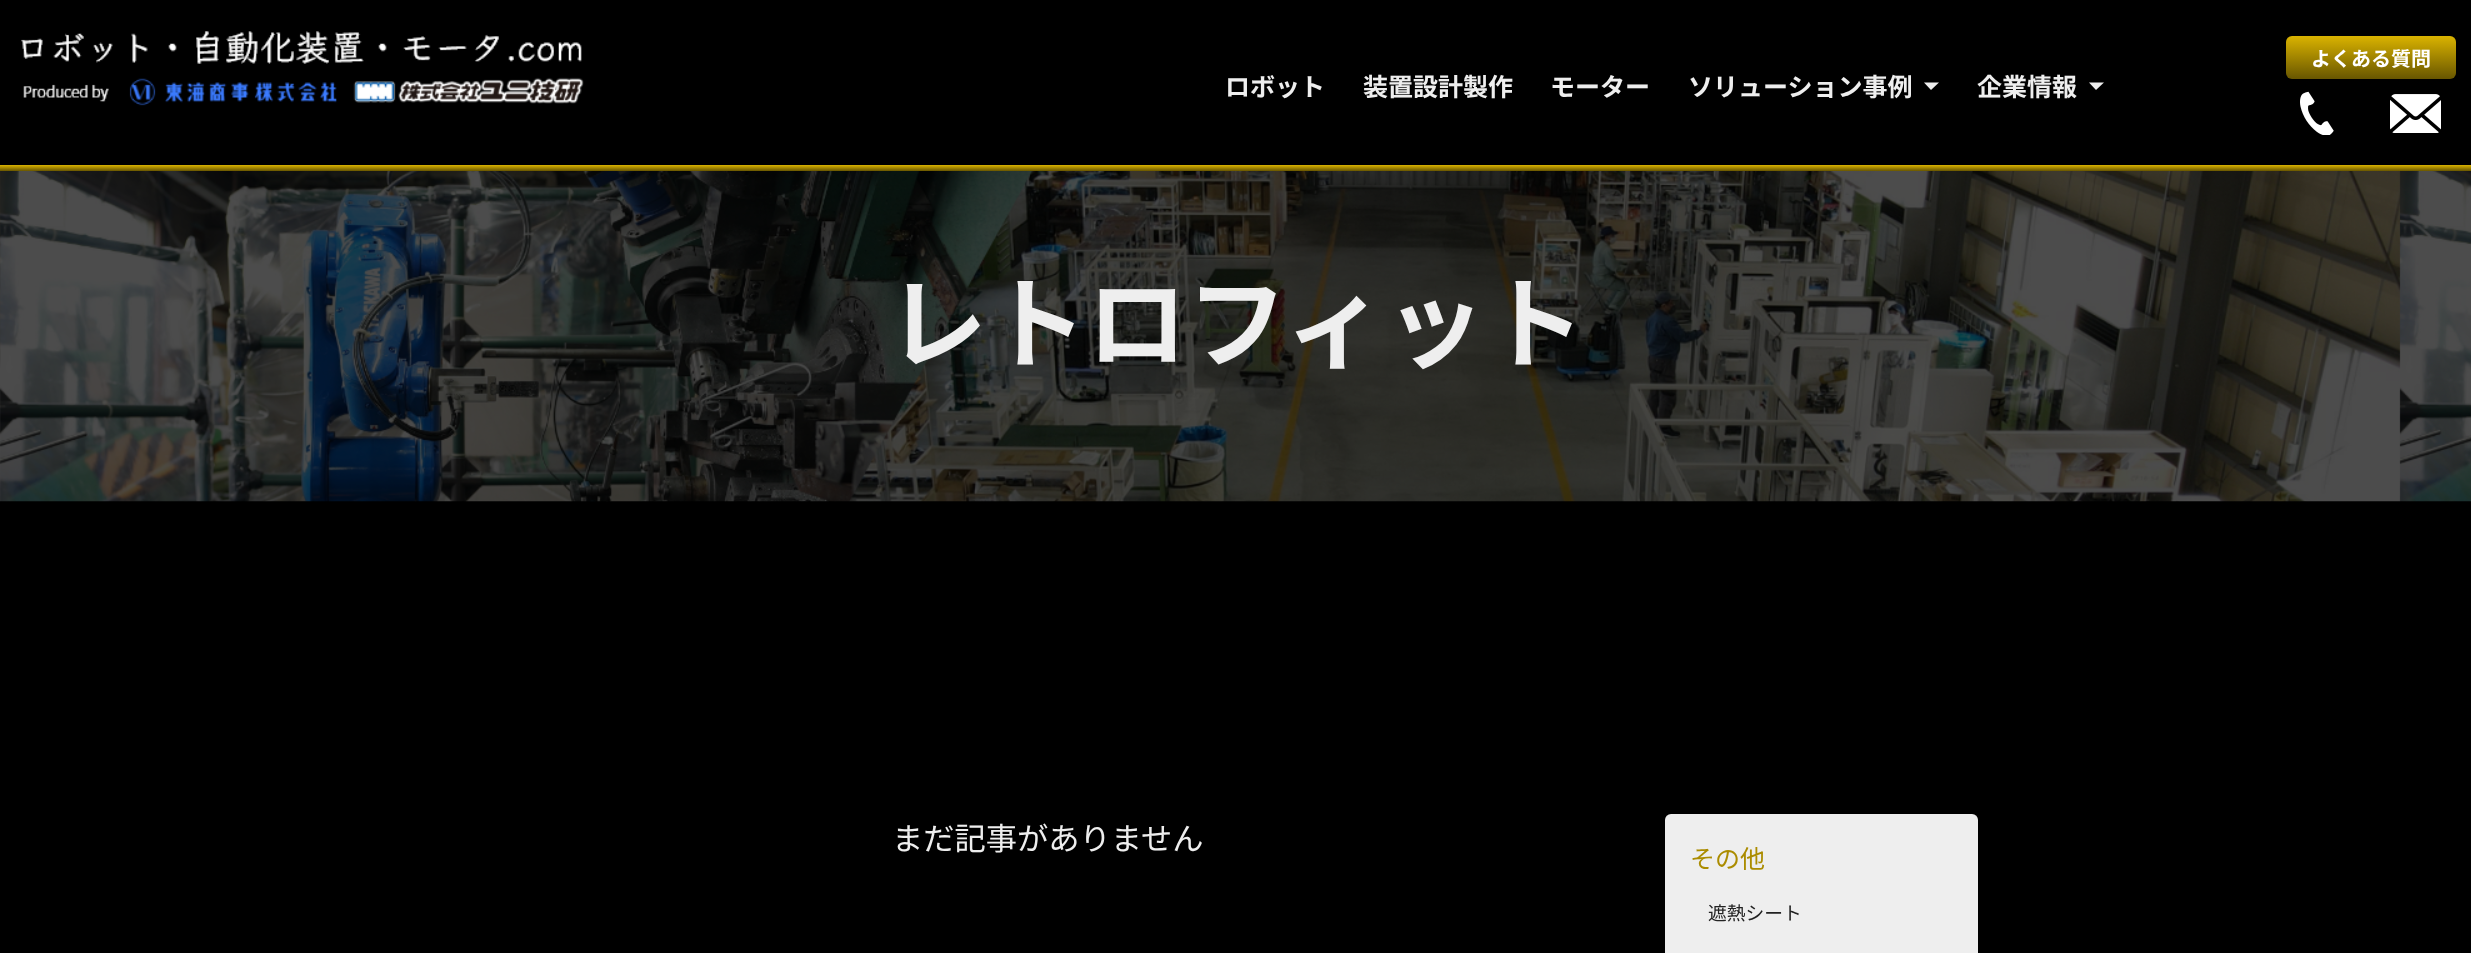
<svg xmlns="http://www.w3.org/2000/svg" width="2471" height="953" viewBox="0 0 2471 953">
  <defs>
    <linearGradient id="g1" gradientUnits="userSpaceOnUse" x1="2371" y1="36" x2="2371" y2="79"><stop offset="0" stop-color="rgb(218,179,0)"/><stop offset="1" stop-color="rgb(104,86,0)"/></linearGradient>
    <linearGradient id="g2" gradientUnits="userSpaceOnUse" x1="1236" y1="165" x2="1236" y2="171"><stop offset="0" stop-color="rgb(218,179,0)"/><stop offset="1" stop-color="rgb(104,86,0)"/></linearGradient>
  </defs>
  <rect width="100%" height="100%" fill="rgb(0,0,0)"/>
  <image x="21" y="31" width="563" height="75" href="pic1.png"/>
  <rect x="2286" y="36" width="170" height="43" rx="6" fill="url(#g1)"/>
  <text x="2311" y="66" font-family="Noto Sans JP" font-size="20" font-weight="bold" fill="rgb(255,255,255)">よくある質問</text>
  <image x="2300" y="91" width="34" height="44" href="pic2.png"/>
  <image x="2390" y="94" width="51" height="39" href="pic3.png"/>
  <g font-family="Noto Sans JP" font-size="25" font-weight="bold" fill="rgb(238,238,238)">
    <text x="1225" y="96">ロボット</text>
    <text x="1363" y="96">装置設計製作</text>
    <text x="1550" y="96">モーター</text>
    <text x="1688" y="96">ソリューション事例</text>
  </g>
  <path d="M1924 82.5H1939L1931 90Z" fill="rgb(238,238,238)"/>
  <text x="1977" y="96" font-family="Noto Sans JP" font-size="25" font-weight="bold" fill="rgb(238,238,238)">企業情報</text>
  <path d="M2089 82.5H2104L2096 90Z" fill="rgb(238,238,238)"/>
  <rect x="0" y="165" width="2471" height="6" fill="url(#g2)"/>
  <image x="0" y="171" width="2471" height="331" href="pic4.png"/>
  <text x="887" y="360" font-family="Noto Sans JP" font-size="100" font-weight="bold" fill="rgb(238,238,238)">レトロフィット</text>
  <text x="892" y="850" font-family="Noto Sans JP" font-size="31.25" fill="rgb(238,238,238)">まだ記事がありません</text>
  <rect x="1665" y="814" width="313" height="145" rx="6" fill="rgb(238,238,238)"/>
  <text x="1690" y="868" font-family="Noto Sans JP" font-size="25" fill="rgb(171,140,0)">その他</text>
  <text x="1708" y="920" font-family="Noto Sans JP" font-size="18.75" fill="rgb(34,34,34)">遮熱シート</text>
</svg>
